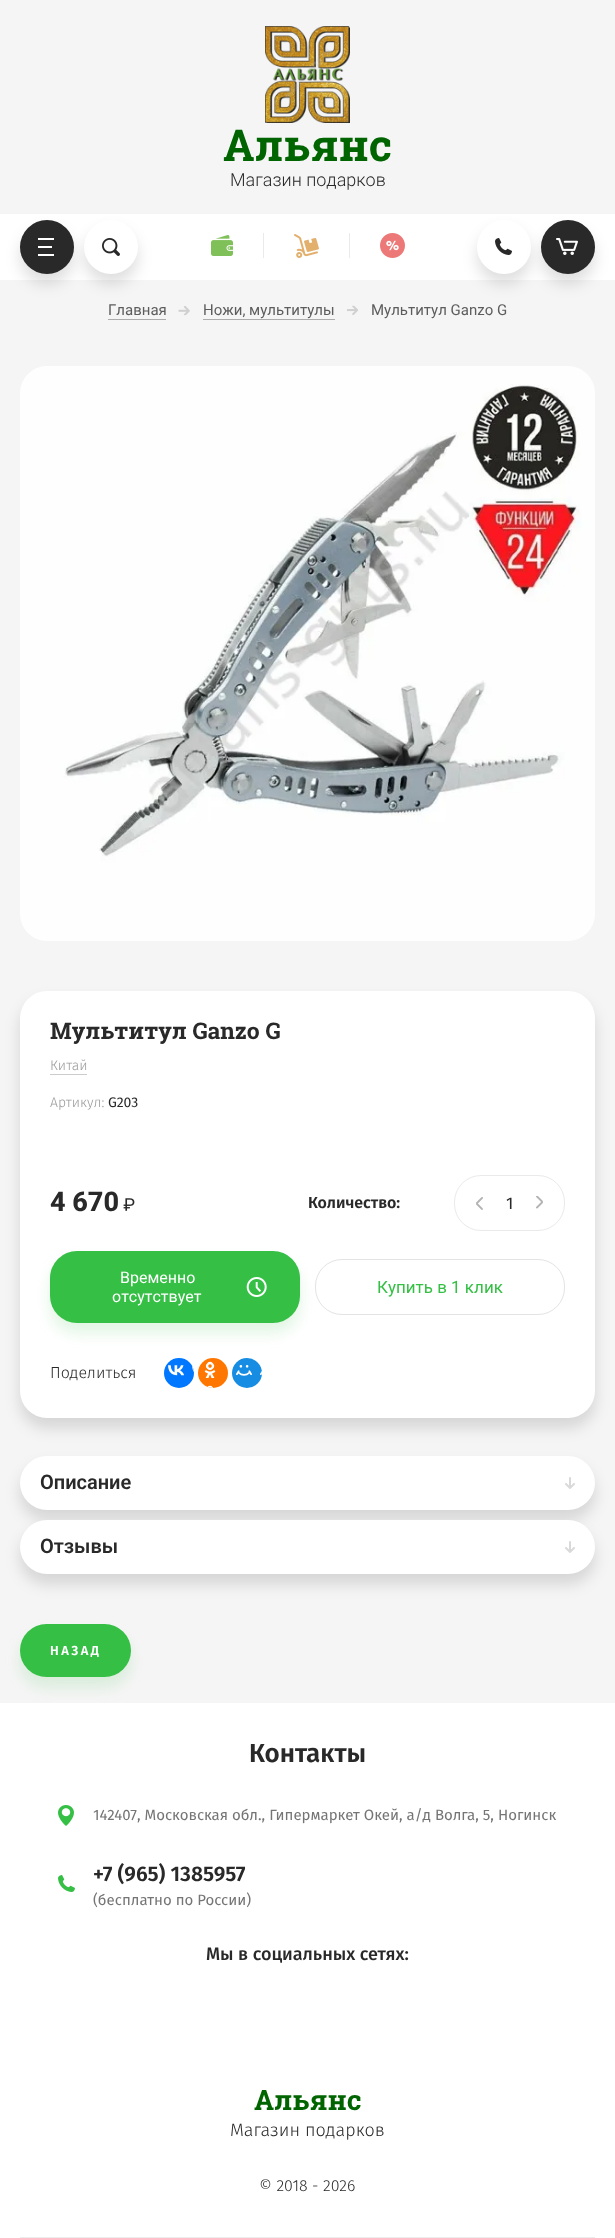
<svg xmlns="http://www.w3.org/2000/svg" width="615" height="2238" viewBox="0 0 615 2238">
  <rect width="100%" height="100%" fill="rgb(245,245,245)"/>
  <image x="265" y="26" width="85" height="97" href="pic1.png"/>
  <text x="223" y="161" font-family="Roboto Slab" font-size="44" font-weight="bold" fill="rgb(0,100,0)">Альянс</text>
  <text x="230" y="186" font-family="Roboto" font-size="18" font-weight="300" fill="rgb(41,41,41)">Магазин подарков</text>
  <rect x="0" y="214" width="615" height="66" fill="rgb(255,255,255)"/>
  <rect x="84" y="230" width="54" height="54" rx="27" fill="rgba(0,0,0,0.13)" filter="blur(7.5px)"/>
  <circle cx="111" cy="247" r="27" fill="rgb(255,255,255)"/>
  <rect x="20" y="230" width="54" height="54" rx="27" fill="rgba(0,0,0,0.13)" filter="blur(7.5px)"/>
  <circle cx="47" cy="247" r="27" fill="rgb(41,41,41)"/>
  <rect x="38" y="238" width="16" height="2" fill="rgb(255,255,255)"/>
  <rect x="38" y="246" width="14" height="2" fill="rgb(255,255,255)"/>
  <rect x="38" y="254" width="16" height="2" fill="rgb(255,255,255)"/>
  <image x="102" y="238" width="18" height="18" href="pic2.png"/>
  <image x="211" y="235" width="22" height="21" href="pic3.png"/>
  <rect x="263" y="233" width="1" height="25" fill="rgb(234,234,234)"/>
  <image x="294" y="234" width="25" height="24" href="pic4.png"/>
  <rect x="349" y="233" width="1" height="25" fill="rgb(234,234,234)"/>
  <image x="380" y="233" width="25" height="25" href="pic5.png"/>
  <rect x="477" y="230" width="54" height="54" rx="27" fill="rgba(0,0,0,0.13)" filter="blur(7.5px)"/>
  <circle cx="504" cy="247" r="27" fill="rgb(255,255,255)"/>
  <image x="495" y="238" width="17" height="17" href="pic6.png"/>
  <rect x="541" y="230" width="54" height="54" rx="27" fill="rgba(0,0,0,0.13)" filter="blur(7.5px)"/>
  <circle cx="568" cy="247" r="27" fill="rgb(41,41,41)"/>
  <image x="556" y="238" width="22" height="17" href="pic7.png"/>
  <text x="108" y="315" font-family="Roboto" font-size="15" fill="rgb(93,93,93)">Главная</text>
  <rect x="108" y="319" width="58" height="1" fill="rgb(172,172,172)"/>
  <image x="178" y="306" width="12" height="10" href="pic8.png"/>
  <text x="203" y="315" font-family="Roboto" font-size="15" fill="rgb(93,93,93)">Ножи, мультитулы</text>
  <rect x="203" y="319" width="132" height="1" fill="rgb(172,172,172)"/>
  <image x="347" y="305" width="11" height="10" href="pic9.png"/>
  <text x="371" y="315" font-family="Roboto" font-size="15" fill="rgb(93,93,93)">Мультитул Ganzo G</text>
  <image x="20" y="366" width="575" height="575" href="pic10.png"/>
  <rect x="20" y="1001" width="575" height="427" rx="27" fill="rgba(0,0,0,0.13)" filter="blur(7.5px)"/>
  <rect x="20" y="991" width="575" height="427" rx="27" fill="rgb(255,255,255)"/>
  <text x="50" y="1039" font-family="Roboto Slab" font-size="23" font-weight="bold" fill="rgb(41,41,41)">Мультитул Ganzo G</text>
  <text x="50" y="1070" font-family="Fira Sans" font-size="14" font-weight="300" fill="rgb(155,155,155)">Китай</text>
  <rect x="50" y="1074" width="37" height="1" fill="rgb(204,204,204)"/>
  <text x="50" y="1107" font-family="Fira Sans" font-size="14" font-weight="300" fill="rgb(155,155,155)">Артикул:</text>
  <text x="108" y="1107" font-family="Fira Sans" font-size="14" fill="rgb(41,41,41)">G203</text>
  <text x="50" y="1211" font-family="Roboto" font-size="27" font-weight="800" fill="rgb(41,41,41)">4 670</text>
  <image x="123" y="1198" width="12" height="13" href="pic11.png"/>
  <text x="308" y="1208" font-family="Fira Sans" font-size="16" font-weight="600" fill="rgb(41,41,41)">Количество:</text>
  <rect x="454.5" y="1175.5" width="110" height="55" rx="26.5" fill="none" stroke="rgb(234,234,234)"/>
  <image x="476" y="1197" width="7" height="13" href="pic12.png"/>
  <text x="506" y="1209" font-family="Fira Sans" font-size="17" fill="rgb(41,41,41)">1</text>
  <image x="536" y="1196" width="7" height="13" href="pic13.png"/>
  <rect x="50" y="1261" width="250" height="72" rx="27" fill="rgba(53,191,69,0.15)" filter="blur(7.5px)"/>
  <rect x="50" y="1251" width="250" height="72" rx="27" fill="rgb(53,191,69)"/>
  <g font-family="Roboto" font-size="16" fill="rgb(255,255,255)">
    <text x="120" y="1283">Временно</text>
    <text x="112" y="1302">отсутствует</text>
  </g>
  <image x="246" y="1277" width="21" height="20" href="pic14.png"/>
  <rect x="315.5" y="1259.5" width="249" height="55" rx="26.5" fill="none" stroke="rgb(227,227,227)"/>
  <text x="377" y="1293" font-family="Roboto" font-size="17" fill="rgb(53,191,69)">Купить в 1 клик</text>
  <text x="50" y="1378" font-family="Fira Sans" font-size="16" font-weight="300" fill="rgb(41,41,41)">Поделиться</text>
  <circle cx="179" cy="1373" r="15" fill="rgb(0,119,255)"/>
  <image x="168" y="1365" width="26" height="11" href="pic15.png"/>
  <circle cx="213" cy="1373" r="15" fill="rgb(255,119,0)"/>
  <image x="204" y="1361" width="12" height="27" href="pic16.png"/>
  <circle cx="247" cy="1373" r="15" fill="rgb(22,141,226)"/>
  <image x="236" y="1365" width="26" height="11" href="pic17.png"/>
  <rect x="20" y="1466" width="575" height="54" rx="27" fill="rgba(0,0,0,0.13)" filter="blur(7.5px)"/>
  <rect x="20" y="1456" width="575" height="54" rx="27" fill="rgb(255,255,255)"/>
  <text x="40" y="1489" font-family="Roboto" font-size="20" font-weight="600" fill="rgb(41,41,41)">Описание</text>
  <image x="565" y="1477" width="10" height="12" href="pic18.png"/>
  <rect x="20" y="1530" width="575" height="54" rx="27" fill="rgba(0,0,0,0.13)" filter="blur(7.5px)"/>
  <rect x="20" y="1520" width="575" height="54" rx="27" fill="rgb(255,255,255)"/>
  <text x="40" y="1553" font-family="Roboto" font-size="20" font-weight="600" fill="rgb(41,41,41)">Отзывы</text>
  <image x="565" y="1541" width="10" height="12" href="pic18.png"/>
  <rect x="0" y="1703" width="615" height="535" fill="rgb(255,255,255)"/>
  <rect x="20" y="1634" width="111" height="53" rx="26.5" fill="rgba(53,191,69,0.15)" filter="blur(7.5px)"/>
  <rect x="20" y="1624" width="111" height="53" rx="26.5" fill="rgb(53,191,69)"/>
  <text x="50" y="1655" font-family="Fira Sans" font-size="13" font-weight="600" letter-spacing="2.5" fill="rgb(255,255,255)">НАЗАД</text>
  <text x="249" y="1762" font-family="Fira Sans" font-size="26" font-weight="600" fill="rgb(41,41,41)">Контакты</text>
  <image x="58" y="1805" width="16" height="21" href="pic19.png"/>
  <text x="93" y="1820" font-family="Fira Sans" font-size="15" fill="rgb(117,117,117)">142407, Московская обл., Гипермаркет Окей, а/д Волга, 5, Ногинск</text>
  <image x="58" y="1875" width="17" height="17" href="pic20.png"/>
  <text x="93" y="1881" font-family="Fira Sans" font-size="21" font-weight="600" fill="rgb(41,41,41)">+7 (965) 1385957</text>
  <text x="93" y="1905" font-family="Fira Sans" font-size="15" fill="rgb(117,117,117)">(бесплатно по России)</text>
  <text x="206" y="1960" font-family="Fira Sans" font-size="18" font-weight="500" fill="rgb(41,41,41)">Мы в социальных сетях:</text>
  <text x="254" y="2110" font-family="Roboto Slab" font-size="28" font-weight="bold" fill="rgb(0,100,0)">Альянс</text>
  <text x="230" y="2136" font-family="Fira Sans" font-size="18" font-weight="300" fill="rgb(41,41,41)">Магазин подарков</text>
  <text x="259" y="2191" font-family="Fira Sans" font-size="16" font-weight="300" fill="rgb(41,41,41)">© 2018 - 2026</text>
  <rect x="20" y="2237" width="575" height="1" fill="rgb(237,237,237)"/>
</svg>
